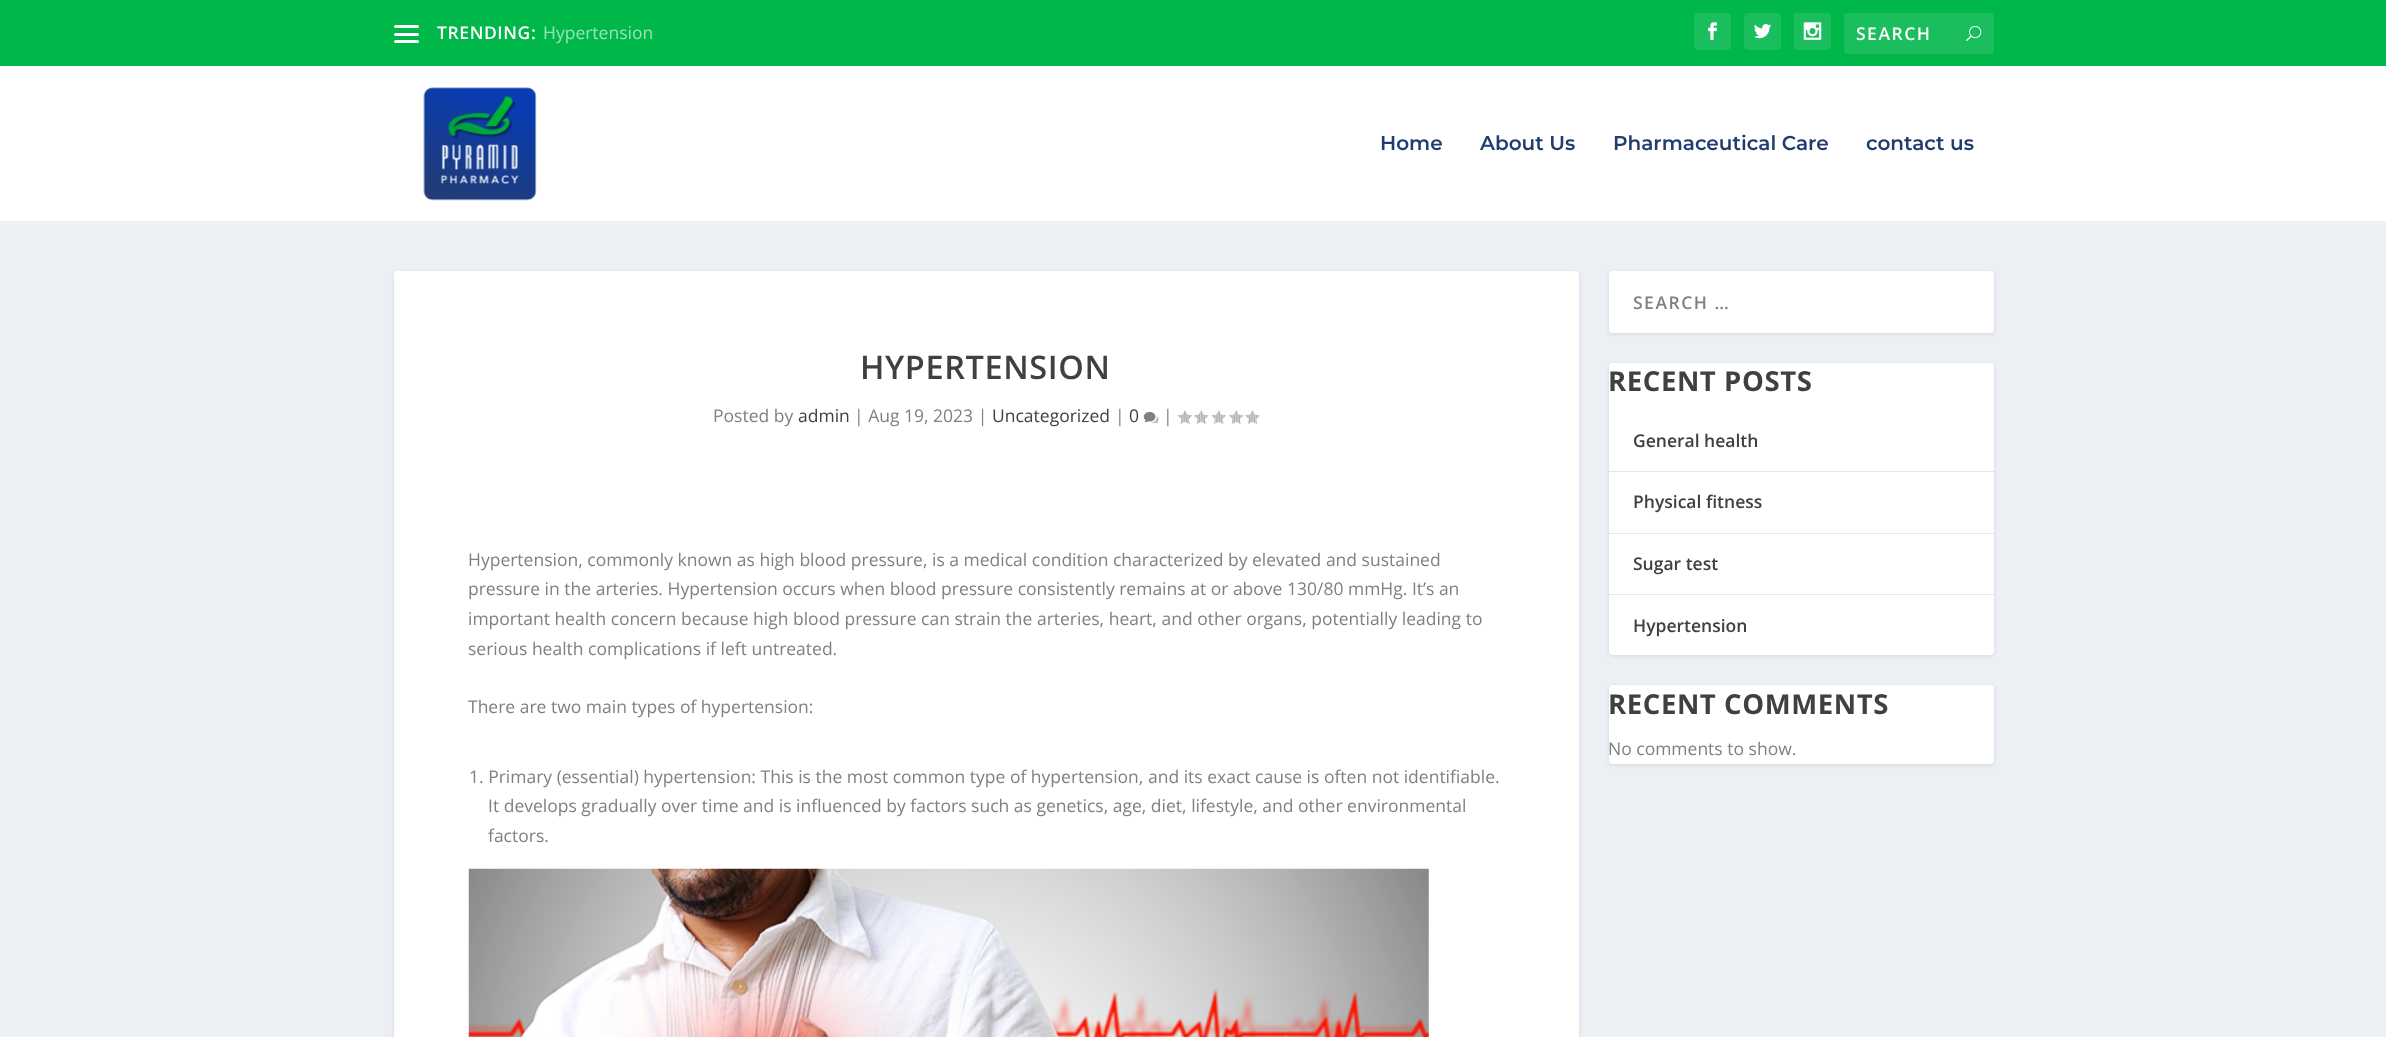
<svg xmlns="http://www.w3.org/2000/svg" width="2386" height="1037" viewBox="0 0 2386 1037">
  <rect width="100%" height="100%" fill="rgb(236,240,245)"/>
  <rect x="0" y="0" width="2386" height="66" fill="rgb(0,183,74)"/>
  <rect x="394" y="25" width="25" height="3" rx="1.5" fill="rgb(255,255,255)"/>
  <rect x="394" y="33" width="25" height="3" rx="1.5" fill="rgb(255,255,255)"/>
  <rect x="394" y="40" width="25" height="3" rx="1.5" fill="rgb(255,255,255)"/>
  <text x="437" y="39" font-family="Open Sans" font-size="17.5" font-weight="600" letter-spacing="0.6" fill="rgb(255,255,255)">TRENDING:</text>
  <text x="543" y="39" font-family="Open Sans" font-size="17.5" fill="rgb(153,226,183)">Hypertension</text>
  <rect x="1694" y="13" width="37" height="37" rx="4" fill="rgb(26,190,92)"/>
  <image x="1708" y="22" width="9" height="18" href="pic1.png"/>
  <rect x="1744" y="13" width="37" height="37" rx="4" fill="rgb(26,190,92)"/>
  <image x="1754" y="24" width="18" height="15" href="pic2.png"/>
  <rect x="1794" y="13" width="37" height="37" rx="4" fill="rgb(26,190,92)"/>
  <image x="1803" y="22" width="19" height="18" href="pic3.png"/>
  <rect x="1844" y="13" width="150" height="41" rx="4" fill="rgb(26,190,92)"/>
  <text x="1856" y="40" font-family="Open Sans" font-size="17.5" font-weight="600" letter-spacing="1.5" fill="rgb(255,255,255)">SEARCH</text>
  <image x="1966" y="25" width="16" height="16" href="pic4.png"/>
  <rect x="0" y="66" width="2386" height="155" fill="rgb(255,255,255)"/>
  <image x="423" y="87" width="114" height="114" href="pic5.png"/>
  <g font-family="Montserrat" font-size="20" font-weight="100" fill="rgb(33,61,112)">
    <text x="1380" y="150">Home</text>
    <text x="1480" y="150">About Us</text>
    <text x="1613" y="150">Pharmaceutical Care</text>
    <text x="1866" y="150">contact us</text>
  </g>
  <rect x="394" y="273" width="1185" height="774" rx="4" fill="rgba(0,0,0,0.1)" filter="blur(2px)"/>
  <rect x="394" y="271" width="1185" height="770" rx="4" fill="rgb(255,255,255)"/>
  <text x="860" y="379" font-family="Open Sans" font-size="32.5" font-weight="600" letter-spacing="0.6" fill="rgb(64,64,64)">HYPERTENSION</text>
  <text x="713" y="422" font-family="Open Sans" font-size="17.5" fill="rgb(128,128,128)">Posted by</text>
  <text x="798" y="422" font-family="Open Sans" font-size="17.5" fill="rgb(64,64,64)">admin</text>
  <text x="854" y="422" font-family="Open Sans" font-size="17.5" fill="rgb(128,128,128)">| Aug 19, 2023 |</text>
  <text x="992" y="422" font-family="Open Sans" font-size="17.5" fill="rgb(64,64,64)">Uncategorized</text>
  <text x="1115" y="422" font-family="Open Sans" font-size="17.5" fill="rgb(128,128,128)">|</text>
  <text x="1129" y="422" font-family="Open Sans" font-size="17.5" fill="rgb(64,64,64)">0</text>
  <image x="1143" y="412" width="16" height="12" href="pic6.png"/>
  <text x="1163" y="422" font-family="Open Sans" font-size="17.5" fill="rgb(128,128,128)">|</text>
  <image x="1177" y="410" width="16" height="14" href="pic7.png"/>
  <image x="1194" y="410" width="15" height="14" href="pic8.png"/>
  <image x="1211" y="410" width="15" height="14" href="pic9.png"/>
  <image x="1229" y="410" width="15" height="14" href="pic8.png"/>
  <image x="1245" y="410" width="15" height="14" href="pic10.png"/>
  <g font-family="Open Sans" font-size="17.5" fill="rgb(128,128,128)">
    <text>
      <tspan x="468" y="566">Hypertension, commonly known as high blood pressure, is a medical condition characterized by elevated and sustained</tspan>
      <tspan x="468" y="595">pressure in the arteries. Hypertension occurs when blood pressure consistently remains at or above 130/80 mmHg. It’s an</tspan>
      <tspan x="468" y="625">important health concern because high blood pressure can strain the arteries, heart, and other organs, potentially leading to</tspan>
      <tspan x="468" y="655">serious health complications if left untreated.</tspan>
    </text>
    <text x="468" y="713">There are two main types of hypertension:</text>
    <text x="469" y="783">1. Primary (essential) hypertension: This is the most common type of hypertension, and its exact cause is often not identifiable.</text>
    <text>
      <tspan x="488" y="812">It develops gradually over time and is influenced by factors such as genetics, age, diet, lifestyle, and other environmental</tspan>
      <tspan x="488" y="842">factors.</tspan>
    </text>
  </g>
  <image x="468" y="868" width="961" height="169" href="pic11.png"/>
  <rect x="1609" y="273" width="385" height="61" rx="4" fill="rgba(0,0,0,0.1)" filter="blur(2px)"/>
  <rect x="1609" y="271" width="385" height="62" rx="4" fill="rgb(255,255,255)"/>
  <text x="1633" y="309" font-family="Open Sans" font-size="17.5" font-weight="600" letter-spacing="1.5" fill="rgb(128,128,128)">SEARCH …</text>
  <rect x="1609" y="364" width="385" height="292" rx="4" fill="rgba(0,0,0,0.1)" filter="blur(2px)"/>
  <rect x="1609" y="363" width="385" height="292" rx="4" fill="rgb(255,255,255)"/>
  <text x="1608" y="391" font-family="Open Sans" font-size="27.5" font-weight="bold" letter-spacing="0.6" fill="rgb(64,64,64)">RECENT POSTS</text>
  <rect x="1609" y="471" width="385" height="1" fill="rgb(230,230,230)"/>
  <text x="1633" y="447" font-family="Open Sans" font-size="17.5" font-weight="600" fill="rgb(64,64,64)">General health</text>
  <rect x="1609" y="533" width="385" height="1" fill="rgb(230,230,230)"/>
  <text x="1633" y="508" font-family="Open Sans" font-size="17.5" font-weight="600" fill="rgb(64,64,64)">Physical fitness</text>
  <rect x="1609" y="594" width="385" height="1" fill="rgb(230,230,230)"/>
  <g font-family="Open Sans" font-size="17.5" font-weight="600" fill="rgb(64,64,64)">
    <text x="1633" y="570">Sugar test</text>
    <text x="1633" y="632">Hypertension</text>
  </g>
  <rect x="1609" y="686" width="385" height="79" rx="4" fill="rgba(0,0,0,0.1)" filter="blur(2px)"/>
  <rect x="1609" y="685" width="385" height="79" rx="4" fill="rgb(255,255,255)"/>
  <text x="1608" y="714" font-family="Open Sans" font-size="27.5" font-weight="bold" letter-spacing="0.6" fill="rgb(64,64,64)">RECENT COMMENTS</text>
  <text x="1608" y="755" font-family="Open Sans" font-size="17.5" fill="rgb(128,128,128)">No comments to show.</text>
</svg>
